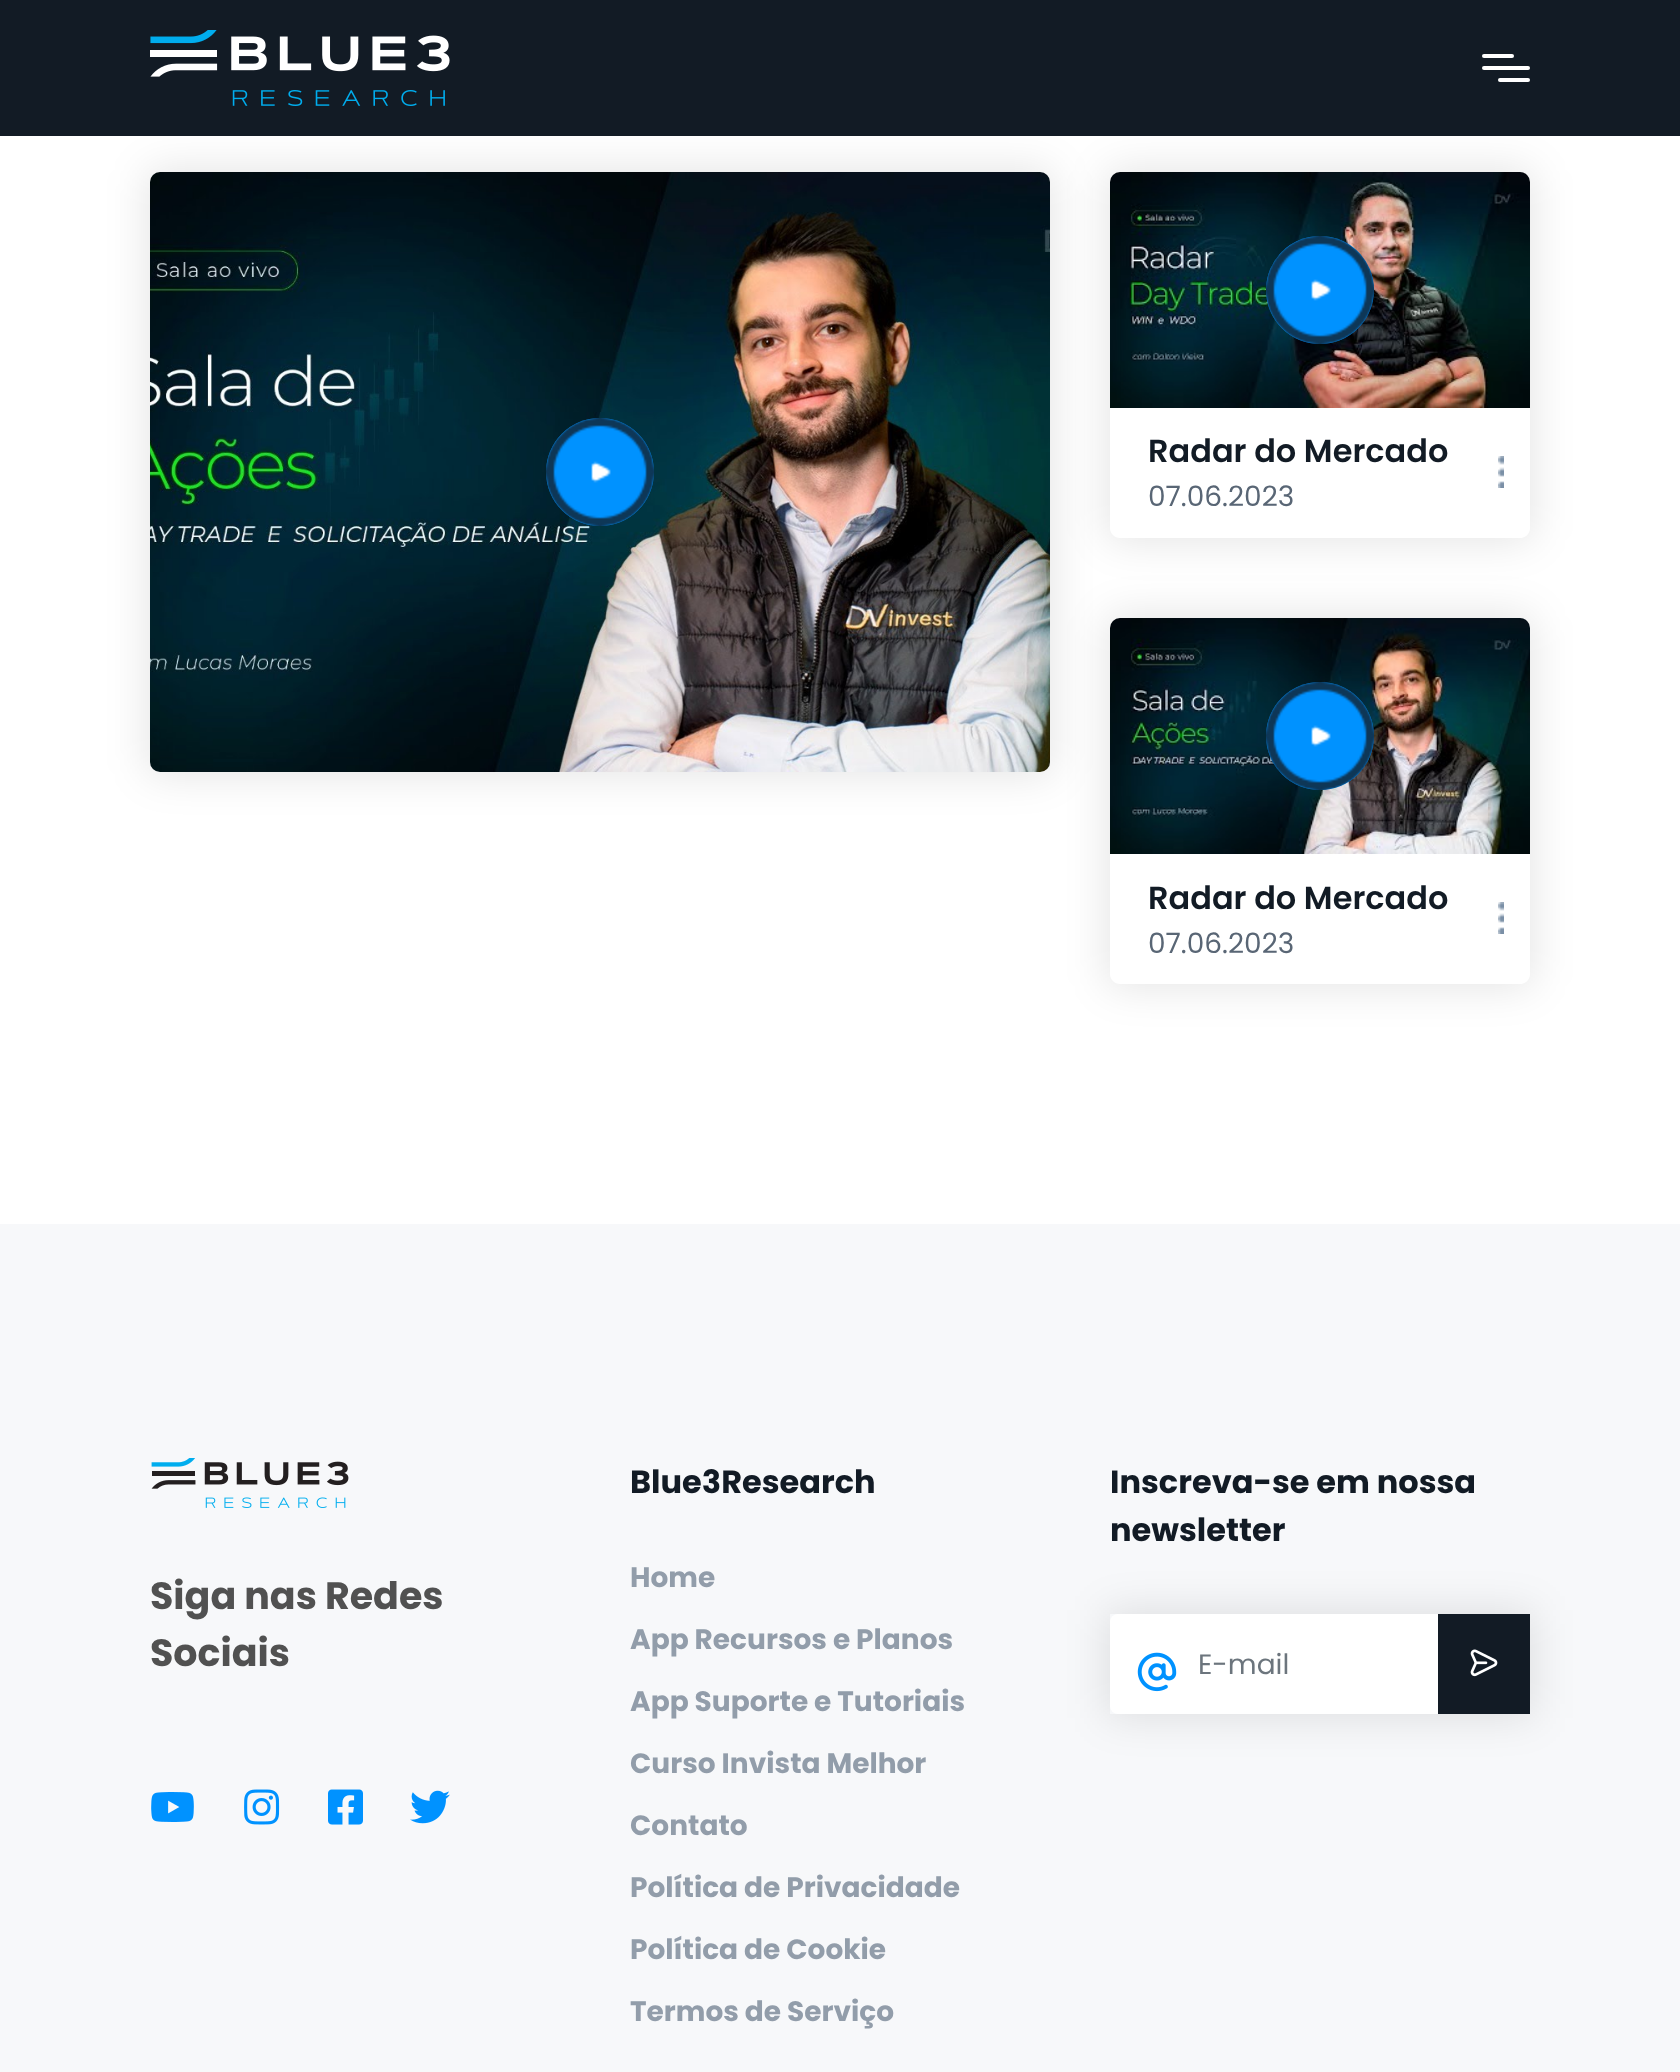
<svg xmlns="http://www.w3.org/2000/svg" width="1680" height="2072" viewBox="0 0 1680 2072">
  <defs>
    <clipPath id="clip1"><path d="M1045 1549H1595V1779H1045ZM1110 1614H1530V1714H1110Z" clip-rule="evenodd"/></clipPath>
  </defs>
  <rect width="100%" height="100%" fill="rgb(255,255,255)"/>
  <rect x="146" y="168" width="908" height="608" rx="14" fill="rgba(0,0,0,0.1)" filter="blur(20px)"/>
  <image x="150" y="172" width="900" height="600" href="pic2.png"/>
  <rect x="1106" y="168" width="428" height="374" rx="14" fill="rgba(0,0,0,0.1)" filter="blur(20px)"/>
  <rect x="0" y="0" width="1680" height="136" fill="rgb(18,27,37)"/>
  <image x="150" y="30" width="300" height="76" href="pic1.png"/>
  <rect x="1482" y="54" width="32" height="4" rx="2" fill="rgb(255,255,255)"/>
  <rect x="1482" y="66" width="48" height="4" rx="2" fill="rgb(255,255,255)"/>
  <rect x="1498" y="78" width="32" height="4" rx="2" fill="rgb(255,255,255)"/>
  <circle cx="600" cy="472" r="54" fill="rgb(0,146,255)"/>
  <image x="546" y="418" width="108" height="108" href="pic3.png"/>
  <image x="1110" y="172" width="420" height="236" href="pic4.png"/>
  <circle cx="1320" cy="290" r="54" fill="rgb(0,146,255)"/>
  <image x="1266" y="236" width="108" height="108" href="pic5.png"/>
  <path d="M1110 408H1530V528C1530 533.5 1525.5 538 1520 538H1120C1114.5 538 1110 533.5 1110 528Z" fill="rgb(255,255,255)"/>
  <text x="1148" y="462" font-family="Poppins" font-size="32" font-weight="600" fill="rgb(18,27,37)">Radar do Mercado</text>
  <image x="1498" y="456" width="6" height="32" href="pic6.png"/>
  <text x="1148" y="506" font-family="Poppins" font-size="28" fill="rgb(89,102,117)">07.06.2023</text>
  <rect x="1106" y="614" width="428" height="374" rx="14" fill="rgba(0,0,0,0.1)" filter="blur(20px)"/>
  <image x="1110" y="618" width="420" height="236" href="pic7.png"/>
  <circle cx="1320" cy="736" r="54" fill="rgb(0,146,255)"/>
  <image x="1266" y="682" width="108" height="108" href="pic8.png"/>
  <path d="M1110 854H1530V974C1530 979.5 1525.5 984 1520 984H1120C1114.5 984 1110 979.5 1110 974Z" fill="rgb(255,255,255)"/>
  <text x="1148" y="909" font-family="Poppins" font-size="32" font-weight="600" fill="rgb(18,27,37)">Radar do Mercado</text>
  <image x="1498" y="902" width="6" height="32" href="pic6.png"/>
  <text x="1148" y="953" font-family="Poppins" font-size="28" fill="rgb(89,102,117)">07.06.2023</text>
  <rect x="0" y="1224" width="1680" height="848" fill="rgb(247,248,250)"/>
  <image x="151" y="1458" width="198" height="50" href="pic9.png"/>
  <g font-family="Poppins" font-size="38" font-weight="bold" fill="rgb(81,81,81)">
    <text>
      <tspan x="150" y="1609">Siga nas Redes</tspan>
      <tspan x="150" y="1666">Sociais</tspan>
    </text>
  </g>
  <image x="151" y="1792" width="43" height="30" href="pic10.png"/>
  <image x="244" y="1789" width="36" height="36" href="pic11.png"/>
  <image x="328" y="1789" width="35" height="36" href="pic12.png"/>
  <image x="410" y="1790" width="40" height="34" href="pic13.png"/>
  <text x="630" y="1493" font-family="Poppins" font-size="32" font-weight="bold" fill="rgb(18,27,37)">Blue3Research</text>
  <g font-family="Poppins" font-size="28" font-weight="bold" fill="rgb(146,157,170)">
    <text x="630" y="1587">Home</text>
    <text x="630" y="1649">App Recursos e Planos</text>
    <text x="630" y="1711">App Suporte e Tutoriais</text>
    <text x="630" y="1773">Curso Invista Melhor</text>
    <text x="630" y="1835">Contato</text>
    <text x="630" y="1897">Política de Privacidade</text>
    <text x="630" y="1959">Política de Cookie</text>
    <text x="630" y="2021">Termos de Serviço</text>
  </g>
  <g font-family="Poppins" font-size="32" font-weight="bold" fill="rgb(18,27,37)">
    <text>
      <tspan x="1110" y="1493">Inscreva-se em nossa</tspan>
      <tspan x="1110" y="1541">newsletter</tspan>
    </text>
  </g>
  <g clip-path="url(#clip1)">
    <rect x="1106" y="1610" width="428" height="108" fill="rgba(0,0,0,0.1)" filter="blur(20px)"/>
  </g>
  <rect x="1110" y="1614" width="420" height="100" rx="8" fill="rgb(255,255,255)"/>
  <image x="1137" y="1652" width="40" height="40" href="pic14.png"/>
  <text x="1198" y="1674" font-family="Poppins" font-size="28" fill="rgb(108,117,125)">E-mail</text>
  <rect x="1438" y="1614" width="92" height="100" fill="rgb(18,27,37)"/>
  <image x="1470" y="1649" width="28" height="28" href="pic15.png"/>
</svg>
